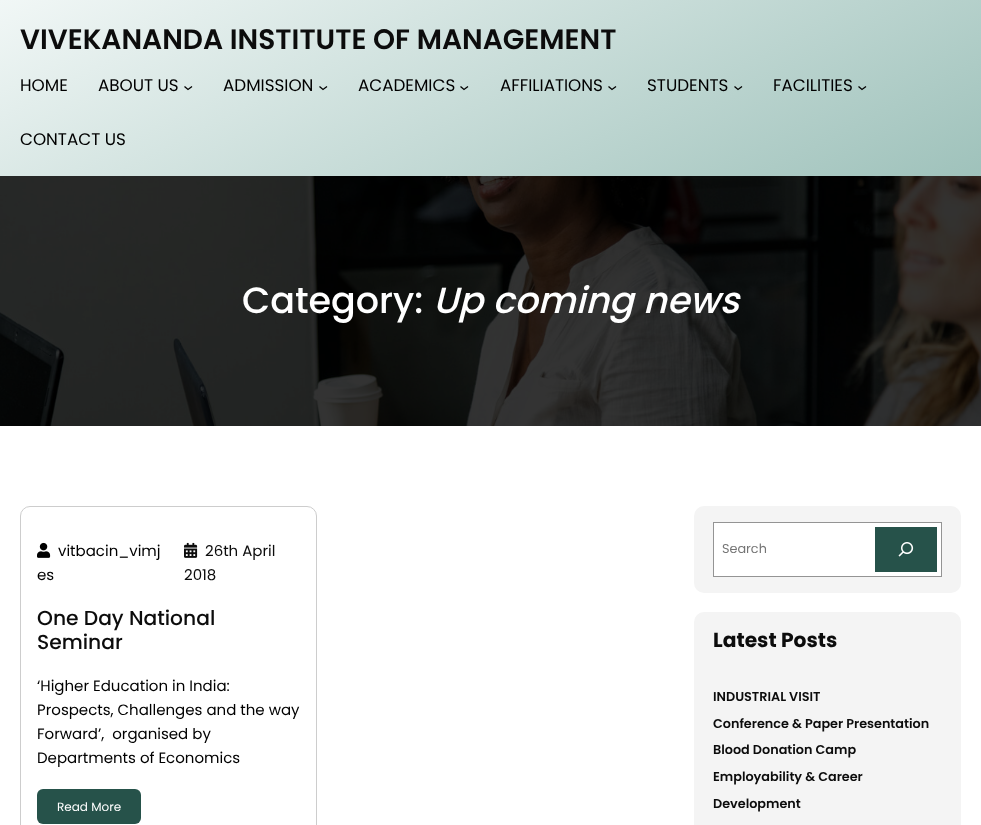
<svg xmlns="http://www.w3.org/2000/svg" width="981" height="825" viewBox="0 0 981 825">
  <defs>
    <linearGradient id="g1" gradientUnits="userSpaceOnUse" x1="627" y1="356" x2="354" y2="-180"><stop offset="0" stop-color="rgb(159,194,187)"/><stop offset="1" stop-color="rgb(241,247,246)"/></linearGradient>
  </defs>
  <rect width="100%" height="100%" fill="rgb(255,255,255)"/>
  <rect x="0" y="0" width="981" height="176" fill="url(#g1)"/>
  <text x="20" y="49" font-family="Poppins" font-size="28.1" font-weight="600" fill="rgb(12,12,12)">VIVEKANANDA INSTITUTE OF MANAGEMENT</text>
  <g font-family="Poppins" font-size="16.75" fill="rgb(0,0,0)">
    <text x="20" y="91">HOME</text>
    <text x="98" y="91">ABOUT US</text>
  </g>
  <path d="M184.5 86.5L188 89.5L192 86.5" fill="none" stroke="rgb(0,0,0)" stroke-width="1.3"/>
  <text x="223" y="91" font-family="Poppins" font-size="16.75" fill="rgb(0,0,0)">ADMISSION</text>
  <path d="M319.5 86.5L323 89.5L327 86.5" fill="none" stroke="rgb(0,0,0)" stroke-width="1.3"/>
  <text x="358" y="91" font-family="Poppins" font-size="16.75" fill="rgb(0,0,0)">ACADEMICS</text>
  <path d="M460.5 86.5L464 89.5L468 86.5" fill="none" stroke="rgb(0,0,0)" stroke-width="1.3"/>
  <text x="500" y="91" font-family="Poppins" font-size="16.75" fill="rgb(0,0,0)">AFFILIATIONS</text>
  <path d="M608.5 86.5L612 89.5L616 86.5" fill="none" stroke="rgb(0,0,0)" stroke-width="1.3"/>
  <text x="647" y="91" font-family="Poppins" font-size="16.75" fill="rgb(0,0,0)">STUDENTS</text>
  <path d="M734.5 86.5L738 89.5L742 86.5" fill="none" stroke="rgb(0,0,0)" stroke-width="1.3"/>
  <text x="773" y="91" font-family="Poppins" font-size="16.75" fill="rgb(0,0,0)">FACILITIES</text>
  <path d="M858.5 86.5L862 89.5L866 86.5" fill="none" stroke="rgb(0,0,0)" stroke-width="1.3"/>
  <text x="20" y="145" font-family="Poppins" font-size="16.75" fill="rgb(0,0,0)">CONTACT US</text>
  <image x="0" y="176" width="981" height="250" href="pic1.png"/>
  <text x="242" y="313" font-family="Poppins" font-size="36.5" font-weight="500" fill="rgb(255,255,255)">Category:</text>
  <text x="433" y="313" font-family="Poppins" font-size="36.5" font-weight="500" font-style="italic" fill="rgb(255,255,255)">Up coming news</text>
  <rect x="20.5" y="506.5" width="296" height="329" rx="9.5" fill="none" stroke="rgb(205,205,205)"/>
  <image x="37" y="542" width="14" height="16" href="pic2.png"/>
  <g font-family="Poppins" font-size="15" fill="rgb(0,0,0)">
    <text x="58" y="556">vitbacin_vimj</text>
    <text x="37" y="580">es</text>
  </g>
  <image x="184" y="542" width="14" height="16" href="pic3.png"/>
  <g font-family="Poppins" font-size="15" fill="rgb(12,12,12)">
    <text x="205" y="556">26th April</text>
    <text x="184" y="580">2018</text>
  </g>
  <g font-family="Poppins" font-size="20.25" font-weight="500" fill="rgb(12,12,12)">
    <text>
      <tspan x="37" y="625">One Day National</tspan>
      <tspan x="37" y="649">Seminar</tspan>
    </text>
  </g>
  <g font-family="Poppins" font-size="15" fill="rgb(0,0,0)">
    <text xml:space="preserve"><tspan x="37" y="691">‘Higher Education in India:</tspan><tspan x="37" y="715">Prospects, Challenges and the way</tspan><tspan x="37" y="739">Forward’,  organised by</tspan><tspan x="37" y="763">Departments of Economics</tspan></text>
  </g>
  <rect x="37" y="789" width="104" height="35" rx="6" fill="rgb(38,82,74)"/>
  <text x="57" y="811" font-family="Poppins" font-size="12" fill="rgb(255,255,255)">Read More</text>
  <rect x="694" y="506" width="267" height="87" rx="10" fill="rgb(244,244,244)"/>
  <rect x="713.5" y="522.5" width="228" height="54" fill="rgb(255,255,255)" stroke="rgb(148,148,148)"/>
  <text x="722" y="553" font-family="Poppins" font-size="12.8" fill="rgb(117,117,117)">Search</text>
  <rect x="875" y="527" width="62" height="45" fill="rgb(38,82,74)"/>
  <image x="898" y="542" width="16" height="15" href="pic4.png"/>
  <rect x="694" y="612" width="267" height="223" rx="10" fill="rgb(244,244,244)"/>
  <text x="713" y="647" font-family="Poppins" font-size="20.25" font-weight="bold" fill="rgb(12,12,12)">Latest Posts</text>
  <g font-family="Poppins" font-size="12.8" font-weight="600" fill="rgb(12,12,12)">
    <text x="713" y="701">INDUSTRIAL VISIT</text>
    <text x="713" y="728">Conference &amp; Paper Presentation</text>
    <text x="713" y="754">Blood Donation Camp</text>
    <text x="713" y="781">Employability &amp; Career</text>
    <text x="713" y="808">Development</text>
  </g>
</svg>
